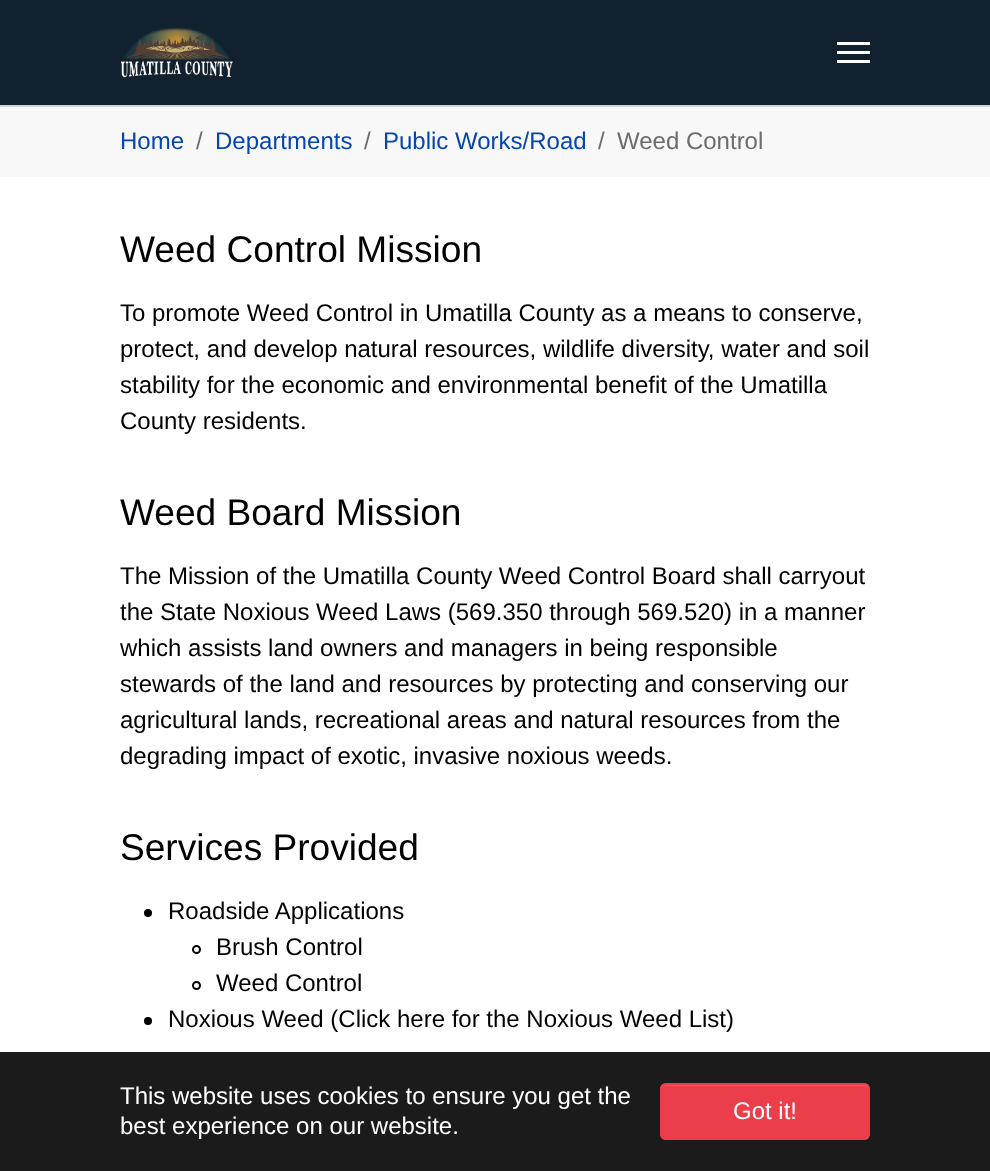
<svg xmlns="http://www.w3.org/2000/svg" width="990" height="1171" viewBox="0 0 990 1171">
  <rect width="100%" height="100%" fill="rgb(255,255,255)"/>
  <rect x="0" y="105" width="990" height="2" fill="rgb(211,211,211)"/>
  <rect x="0" y="0" width="990" height="105" fill="rgb(18,33,47)"/>
  <image x="121" y="27" width="112" height="51" href="pic1.png"/>
  <rect x="837" y="51" width="33" height="3" fill="rgb(255,255,255)"/>
  <rect x="837" y="42" width="33" height="3" fill="rgb(255,255,255)"/>
  <rect x="837" y="60" width="33" height="3" fill="rgb(255,255,255)"/>
  <rect x="0" y="107" width="990" height="70" fill="rgb(248,248,248)"/>
  <text x="120" y="149" font-family="Liberation Sans" font-size="24" fill="rgb(6,69,173)">Home</text>
  <text x="196" y="149" font-family="Liberation Sans" font-size="24" fill="rgb(108,108,108)">/</text>
  <text x="215" y="149" font-family="Liberation Sans" font-size="24" fill="rgb(6,69,173)">Departments</text>
  <text x="364" y="149" font-family="Liberation Sans" font-size="24" fill="rgb(108,108,108)">/</text>
  <text x="383" y="149" font-family="Liberation Sans" font-size="24" fill="rgb(6,69,173)">Public Works/Road</text>
  <g font-family="Liberation Sans" font-size="24" fill="rgb(108,108,108)">
    <text x="598" y="149">/</text>
    <text x="617" y="149">Weed Control</text>
  </g>
  <text x="120" y="262" font-family="Liberation Sans" font-size="37.1" fill="rgb(0,0,0)">Weed Control Mission</text>
  <g font-family="Liberation Sans" font-size="24" fill="rgb(0,0,0)">
    <text>
      <tspan x="120" y="321">To promote Weed Control in Umatilla County as a means to conserve,</tspan>
      <tspan x="120" y="357">protect, and develop natural resources, wildlife diversity, water and soil</tspan>
      <tspan x="120" y="393">stability for the economic and environmental benefit of the Umatilla</tspan>
      <tspan x="120" y="429">County residents.</tspan>
    </text>
  </g>
  <text x="120" y="525" font-family="Liberation Sans" font-size="37.1" fill="rgb(0,0,0)">Weed Board Mission</text>
  <g font-family="Liberation Sans" font-size="24" fill="rgb(0,0,0)">
    <text>
      <tspan x="120" y="584">The Mission of the Umatilla County Weed Control Board shall carryout</tspan>
      <tspan x="120" y="620">the State Noxious Weed Laws (569.350 through 569.520) in a manner</tspan>
      <tspan x="120" y="656">which assists land owners and managers in being responsible</tspan>
      <tspan x="120" y="692">stewards of the land and resources by protecting and conserving our</tspan>
      <tspan x="120" y="728">agricultural lands, recreational areas and natural resources from the</tspan>
      <tspan x="120" y="764">degrading impact of exotic, invasive noxious weeds.</tspan>
    </text>
  </g>
  <text x="120" y="860" font-family="Liberation Sans" font-size="37.1" fill="rgb(0,0,0)">Services Provided</text>
  <circle cx="148" cy="913" r="4" fill="rgb(0,0,0)"/>
  <text x="168" y="919" font-family="Liberation Sans" font-size="24" fill="rgb(0,0,0)">Roadside Applications</text>
  <circle cx="196.5" cy="949.5" r="3.5" fill="none" stroke="rgb(0,0,0)" stroke-width="2"/>
  <text x="216" y="955" font-family="Liberation Sans" font-size="24" fill="rgb(0,0,0)">Brush Control</text>
  <circle cx="196.5" cy="985.5" r="3.5" fill="none" stroke="rgb(0,0,0)" stroke-width="2"/>
  <text x="216" y="991" font-family="Liberation Sans" font-size="24" fill="rgb(0,0,0)">Weed Control</text>
  <circle cx="148" cy="1021" r="4" fill="rgb(0,0,0)"/>
  <text x="168" y="1027" font-family="Liberation Sans" font-size="24" fill="rgb(0,0,0)">Noxious Weed (Click here for the Noxious Weed List)</text>
  <rect x="0" y="1052" width="990" height="119" fill="rgb(27,27,27)"/>
  <g font-family="Liberation Sans" font-size="24" fill="rgb(255,255,255)">
    <text>
      <tspan x="120" y="1104">This website uses cookies to ensure you get the</tspan>
      <tspan x="120" y="1134">best experience on our website.</tspan>
    </text>
  </g>
  <rect x="660" y="1083" width="210" height="57" rx="6" fill="rgb(235,62,74)"/>
  <path d="M666 1086H864C866 1086 868 1088 868 1090V1137C869 1136 869 1135 869 1134V1090C869 1087 867 1085 864 1085H667C664 1085 662 1087 662 1090C662 1088 664 1086 666 1086Z" fill="rgb(238,91,101)"/>
  <rect x="661" y="1084" width="208" height="55" rx="5" fill="none" stroke="rgb(235,62,74)" stroke-width="2"/>
  <text x="733" y="1119" font-family="Liberation Sans" font-size="24" fill="rgb(255,255,255)">Got it!</text>
</svg>
